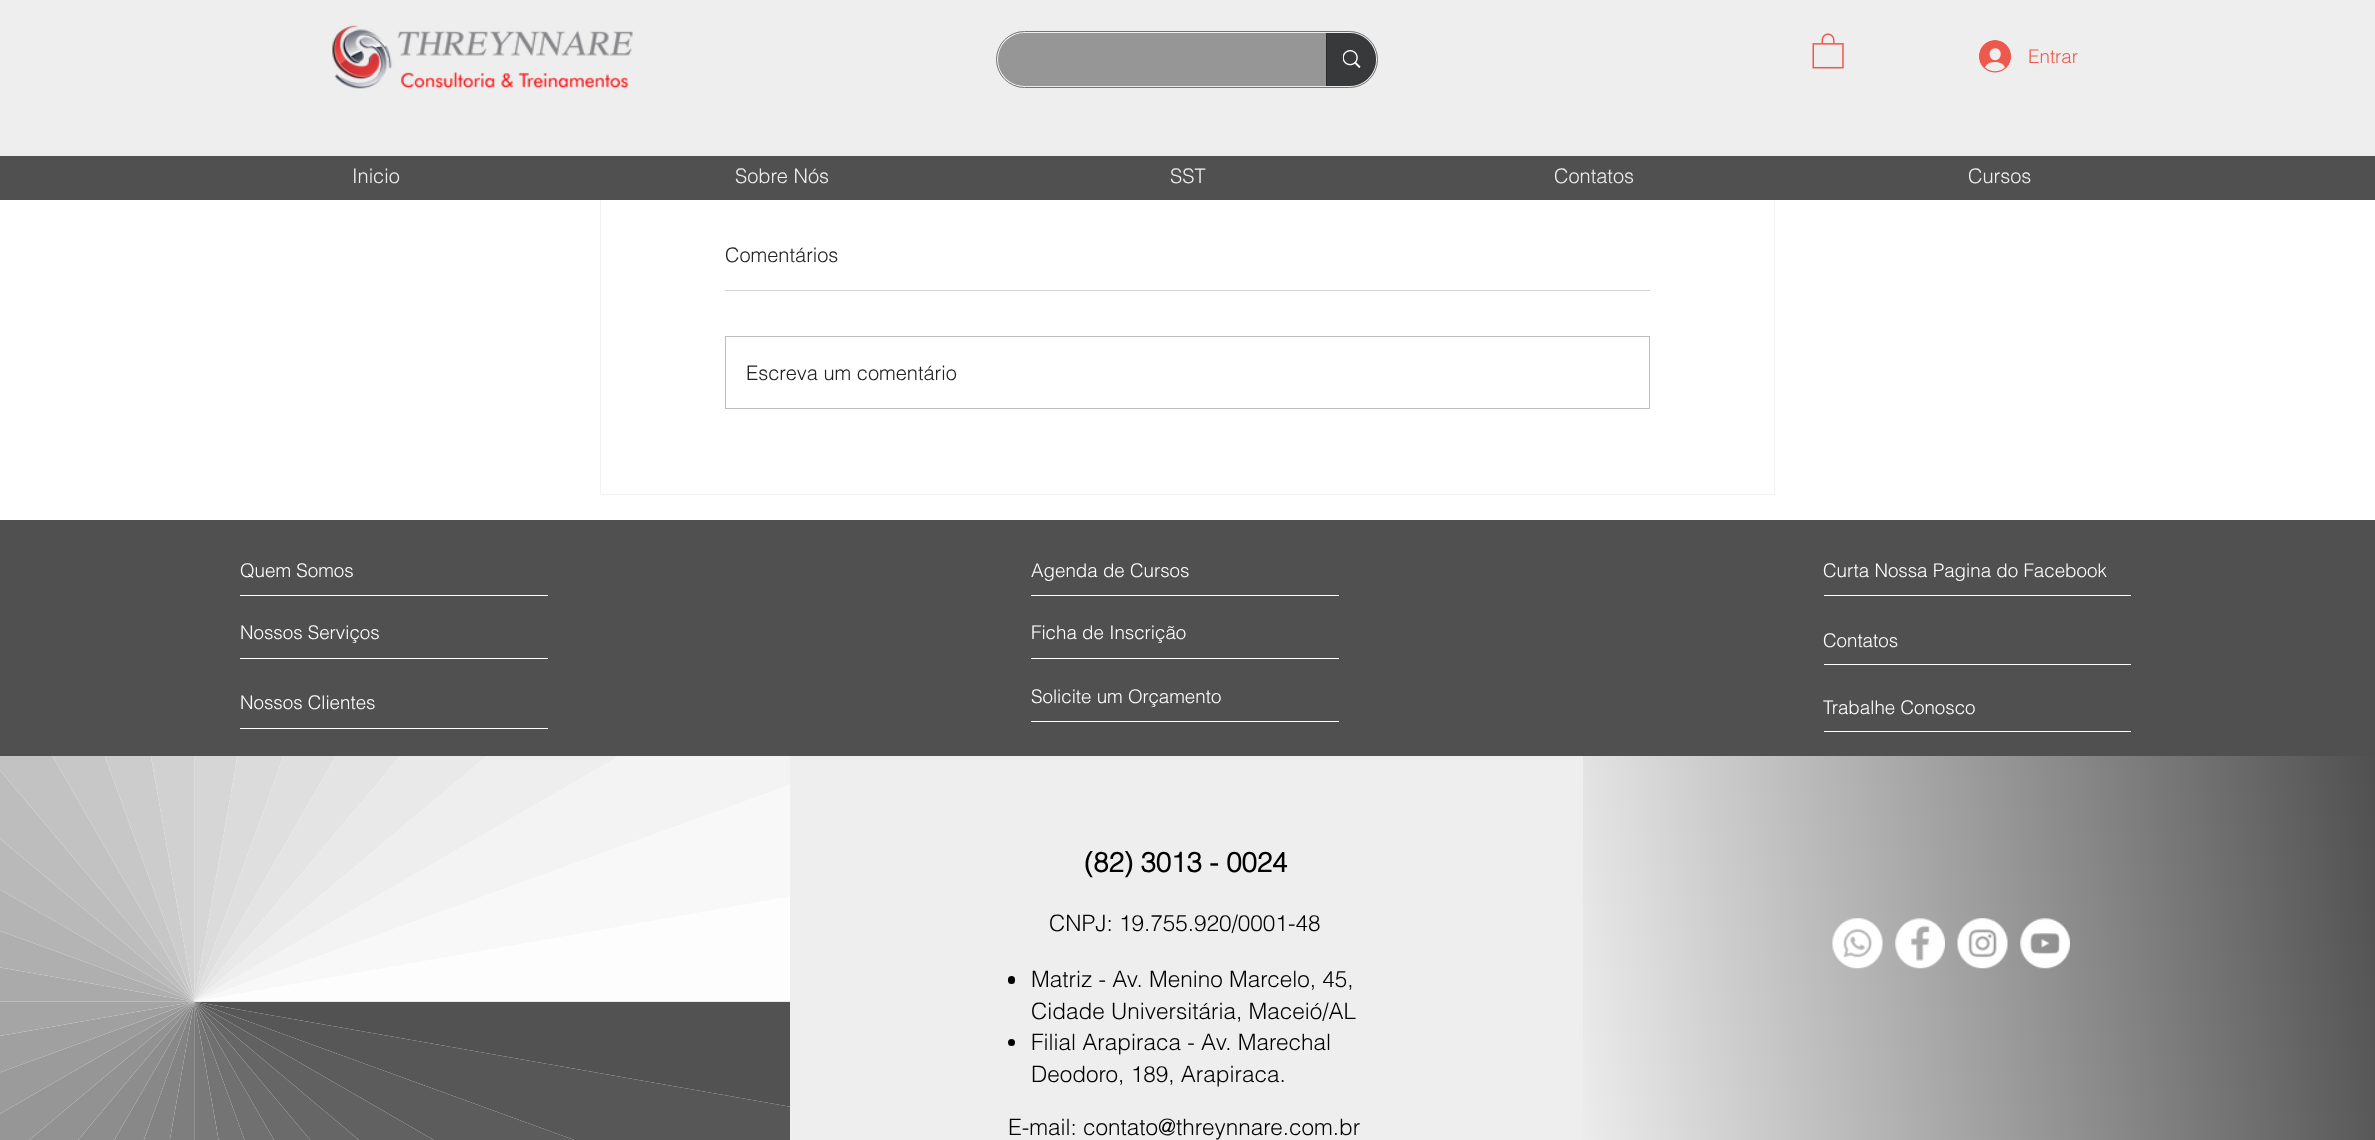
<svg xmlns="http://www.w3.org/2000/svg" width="2375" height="1140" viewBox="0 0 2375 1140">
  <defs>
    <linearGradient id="g1" gradientUnits="userSpaceOnUse" x1="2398" y1="942" x2="1560" y2="1045"><stop offset="0" stop-color="rgb(80,80,80)"/><stop offset="1" stop-color="rgb(238,238,238)"/></linearGradient>
  </defs>
  <rect width="100%" height="100%" fill="rgb(255,255,255)"/>
  <rect x="0" y="0" width="2375" height="156" fill="rgb(238,238,238)"/>
  <image x="332" y="25" width="301" height="64" href="pic1.png"/>
  <rect x="996.5" y="31.5" width="381" height="56" rx="28" fill="none" stroke="rgb(115,116,116)"/>
  <rect x="998" y="33" width="378" height="53" rx="26.5" fill="rgb(150,150,150)"/>
  <path d="M1326 33H1349.5C1364 33 1376 45 1376 59.5C1376 74 1364 86 1349.5 86H1326Z" fill="rgba(33,34,35,0.8)"/>
  <rect x="1326" y="33" width="1" height="53" fill="rgb(42,43,44)"/>
  <image x="1343" y="50" width="18" height="18" href="pic2.png"/>
  <image x="1812" y="33" width="32" height="36" href="pic3.png"/>
  <image x="1979" y="40" width="32" height="33" href="pic4.png"/>
  <text x="2028" y="63" font-family="helvetica" font-size="18.75" font-weight="300" fill="rgb(237,89,76)">Entrar</text>
  <rect x="600.5" y="164.5" width="1174" height="330" fill="none" stroke="rgb(242,242,242)"/>
  <rect x="0" y="156" width="2375" height="44" fill="rgb(80,80,80)"/>
  <g font-family="helvetica" font-size="20" font-weight="300" fill="rgb(238,238,238)">
    <text x="352" y="183">Inicio</text>
    <text x="735" y="183">Sobre Nós</text>
    <text x="1170" y="183">SST</text>
    <text x="1554" y="183">Contatos</text>
    <text x="1968" y="183">Cursos</text>
  </g>
  <text x="725" y="262" font-family="helvetica" font-size="20" font-weight="300" fill="rgb(33,34,35)">Comentários</text>
  <rect x="725" y="290" width="925" height="1" fill="rgb(211,211,211)"/>
  <rect x="725.5" y="336.5" width="924" height="72" fill="none" stroke="rgb(188,189,189)"/>
  <text x="746" y="380" font-family="helvetica" font-size="20" font-weight="300" fill="rgb(33,34,35)">Escreva um comentário</text>
  <rect x="0" y="520" width="2375" height="236" fill="rgb(80,80,80)"/>
  <text x="240" y="577" font-family="helvetica" font-size="18.75" font-weight="300" fill="rgb(255,255,255)">Quem Somos</text>
  <rect x="240" y="595" width="308" height="1" fill="rgb(255,255,255)"/>
  <text x="240" y="639" font-family="helvetica" font-size="18.75" font-weight="300" fill="rgb(255,255,255)">Nossos Serviços</text>
  <rect x="240" y="658" width="308" height="1" fill="rgb(255,255,255)"/>
  <text x="240" y="709" font-family="helvetica" font-size="18.75" font-weight="300" fill="rgb(255,255,255)">Nossos Clientes</text>
  <rect x="240" y="728" width="308" height="1" fill="rgb(255,255,255)"/>
  <text x="1031" y="577" font-family="helvetica" font-size="18.75" font-weight="300" fill="rgb(255,255,255)">Agenda de Cursos</text>
  <rect x="1031" y="595" width="308" height="1" fill="rgb(255,255,255)"/>
  <text x="1031" y="639" font-family="helvetica" font-size="18.75" font-weight="300" fill="rgb(255,255,255)">Ficha de Inscrição</text>
  <rect x="1031" y="658" width="308" height="1" fill="rgb(255,255,255)"/>
  <text x="1031" y="703" font-family="helvetica" font-size="18.75" font-weight="300" fill="rgb(255,255,255)">Solicite um Orçamento</text>
  <rect x="1031" y="721" width="308" height="1" fill="rgb(255,255,255)"/>
  <text x="1823" y="577" font-family="helvetica" font-size="18.75" font-weight="300" fill="rgb(255,255,255)">Curta Nossa Pagina do Facebook</text>
  <rect x="1824" y="595" width="307" height="1" fill="rgb(255,255,255)"/>
  <text x="1823" y="647" font-family="helvetica" font-size="18.75" font-weight="300" fill="rgb(255,255,255)">Contatos</text>
  <rect x="1824" y="664" width="307" height="1" fill="rgb(255,255,255)"/>
  <text x="1823" y="714" font-family="helvetica" font-size="18.75" font-weight="300" fill="rgb(255,255,255)">Trabalhe Conosco</text>
  <rect x="1824" y="731" width="307" height="1" fill="rgb(255,255,255)"/>
  <image x="0" y="756" width="790" height="384" href="pic5.png"/>
  <rect x="790" y="756" width="793" height="384" fill="rgb(238,238,238)"/>
  <text x="1084" y="872" font-family="helvetica" font-size="27.5" font-weight="bold" fill="rgb(0,0,0)">(82) 3013 - 0024</text>
  <text x="1049" y="931" font-family="helvetica" font-size="22.5" font-weight="300" fill="rgb(0,0,0)">CNPJ: 19.755.920/0001-48</text>
  <rect x="1008" y="976" width="7" height="8" rx="3.5" fill="rgb(0,0,0)"/>
  <g font-family="helvetica" font-size="22.5" font-weight="300" fill="rgb(0,0,0)">
    <text>
      <tspan x="1031" y="987">Matriz - Av. Menino Marcelo, 45,</tspan>
      <tspan x="1031" y="1019">Cidade Universitária, Maceió/AL</tspan>
    </text>
  </g>
  <circle cx="1011.5" cy="1042.5" r="3.5" fill="rgb(0,0,0)"/>
  <g font-family="helvetica" font-size="22.5" font-weight="300" fill="rgb(0,0,0)">
    <text>
      <tspan x="1031" y="1050">Filial Arapiraca - Av. Marechal</tspan>
      <tspan x="1031" y="1082">Deodoro, 189, Arapiraca.</tspan>
    </text>
    <text x="1008" y="1135">E-mail: contato@threynnare.com.br</text>
  </g>
  <rect x="1583" y="756" width="792" height="384" fill="url(#g1)"/>
  <image x="1832" y="918" width="51" height="51" href="pic6.png"/>
  <image x="1895" y="918" width="50" height="51" href="pic7.png"/>
  <image x="1957" y="918" width="51" height="51" href="pic8.png"/>
  <image x="2020" y="918" width="50" height="51" href="pic9.png"/>
</svg>
